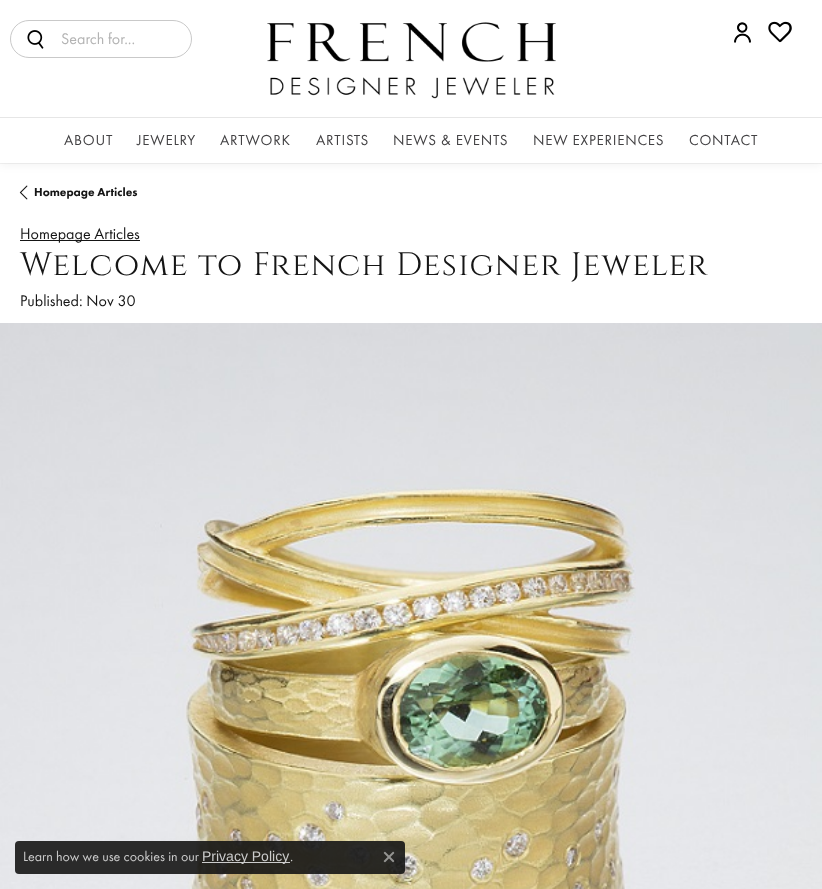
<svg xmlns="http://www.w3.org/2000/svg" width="822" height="889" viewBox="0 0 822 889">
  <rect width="100%" height="100%" fill="rgb(255,255,255)"/>
  <rect x="0" y="2" width="822" height="163" fill="rgba(0,0,0,0.05)" filter="blur(5px)"/>
  <rect x="-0.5" y="-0.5" width="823" height="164" fill="none" stroke="rgba(0,0,0,0.05)"/>
  <rect x="0" y="0" width="822" height="163" fill="rgb(255,255,255)"/>
  <rect x="10.5" y="20.5" width="181" height="37" rx="18.5" fill="none" stroke="rgb(201,201,201)"/>
  <image x="27" y="30" width="17" height="19" href="pic1.png"/>
  <text x="61" y="44" font-family="Futura PT" font-size="16" fill="rgb(179,179,179)">Search for...</text>
  <image x="734" y="22" width="17" height="21" href="pic2.png"/>
  <image x="768" y="21" width="24" height="22" href="pic3.png"/>
  <image x="267" y="22" width="289" height="77" href="pic4.png"/>
  <rect x="0" y="117" width="822" height="1" fill="rgb(230,230,230)"/>
  <g font-family="Futura PT" font-size="15" letter-spacing="0.75" fill="rgb(67,66,68)">
    <text x="64" y="145">ABOUT</text>
    <text x="137" y="145">JEWELRY</text>
    <text x="220" y="145">ARTWORK</text>
    <text x="316" y="145">ARTISTS</text>
    <text x="393" y="145">NEWS &amp; EVENTS</text>
    <text x="533" y="145">NEW EXPERIENCES</text>
    <text x="689" y="145">CONTACT</text>
  </g>
  <image x="19" y="185" width="9" height="15" href="pic5.png"/>
  <text x="34" y="196" font-family="Futura PT" font-size="12" font-weight="900" fill="rgb(21,21,21)">Homepage Articles</text>
  <rect x="20" y="240" width="120" height="1" fill="rgb(21,21,21)"/>
  <text x="20" y="239" font-family="Futura PT" font-size="16" fill="rgb(21,21,21)">Homepage Articles</text>
  <text x="20" y="275" font-family="Cinzel" font-size="32.5" letter-spacing="1.2" fill="rgb(21,21,21)">Welcome to French Designer Jeweler</text>
  <text x="20" y="306" font-family="Futura PT" font-size="16" fill="rgb(21,21,21)">Published: Nov 30</text>
  <image x="0" y="323" width="822" height="566" href="pic6.png"/>
  <rect x="15" y="841" width="390" height="33" rx="4" fill="rgba(21,21,21,0.9)"/>
  <text x="23" y="861" font-family="Futura PT" font-size="14" fill="rgb(204,204,204)">Learn how we use cookies in our</text>
  <rect x="202" y="862" width="88" height="1" fill="rgb(204,204,204)"/>
  <text x="202" y="861" font-family="Liberation Sans" font-size="14" fill="rgb(204,204,204)">Privacy Policy</text>
  <text x="290" y="861" font-family="Futura PT" font-size="14" fill="rgb(204,204,204)">.</text>
  <image x="383" y="851" width="12" height="12" href="pic7.png"/>
</svg>
